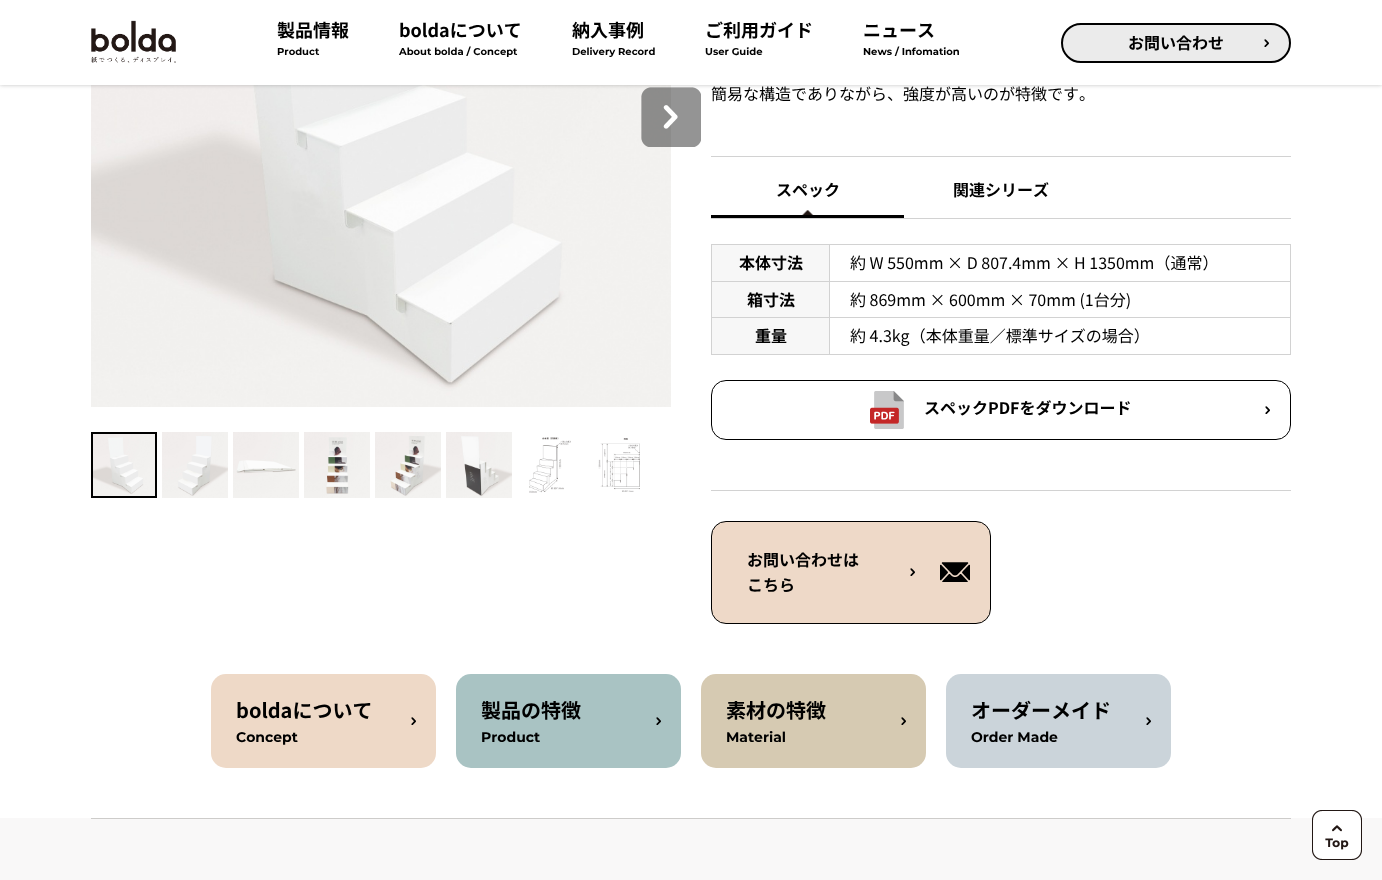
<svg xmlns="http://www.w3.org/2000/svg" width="1382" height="880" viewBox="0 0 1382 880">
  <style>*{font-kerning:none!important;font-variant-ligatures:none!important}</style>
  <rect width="100%" height="100%" fill="rgb(255,255,255)"/>
  <image x="91" y="85" width="580" height="322" href="pic3.png"/>
  <image x="641" y="87" width="60" height="60" href="pic4.png"/>
  <rect x="0" y="0" width="1382" height="85" fill="rgba(100,100,100,0.4)" filter="blur(2px)"/>
  <rect x="0" y="0" width="1382" height="85" fill="rgb(255,255,255)"/>
  <image x="91" y="20" width="85" height="43" href="pic1.png"/>
  <text x="277" y="37" font-family="Noto Sans JP" font-size="18" font-weight="bold" fill="rgb(0,0,0)">製品情報</text>
  <text x="277" y="55" font-family="Montserrat" font-size="10" font-weight="bold" fill="rgb(0,0,0)">Product</text>
  <text x="399" y="37" font-family="Noto Sans JP" font-size="18" font-weight="bold" fill="rgb(0,0,0)">boldaについて</text>
  <text x="399" y="55" font-family="Montserrat" font-size="10" font-weight="bold" fill="rgb(0,0,0)">About bolda / Concept</text>
  <text x="572" y="37" font-family="Noto Sans JP" font-size="18" font-weight="bold" fill="rgb(0,0,0)">納入事例</text>
  <text x="572" y="55" font-family="Montserrat" font-size="10" font-weight="bold" fill="rgb(0,0,0)">Delivery Record</text>
  <text x="705" y="37" font-family="Noto Sans JP" font-size="18" font-weight="bold" fill="rgb(0,0,0)">ご利用ガイド</text>
  <text x="705" y="55" font-family="Montserrat" font-size="10" font-weight="bold" fill="rgb(0,0,0)">User Guide</text>
  <text x="863" y="37" font-family="Noto Sans JP" font-size="18" font-weight="bold" fill="rgb(0,0,0)">ニュース</text>
  <text x="863" y="55" font-family="Montserrat" font-size="10" font-weight="bold" fill="rgb(0,0,0)">News / Infomation</text>
  <rect x="1062" y="24" width="228" height="38" rx="19" fill="rgb(235,235,235)" stroke="rgb(0,0,0)" stroke-width="2"/>
  <text x="1128" y="49" font-family="Noto Sans JP" font-size="16" font-weight="bold" fill="rgb(0,0,0)">お問い合わせ</text>
  <image x="1264" y="39" width="5" height="8" href="pic2.png"/>
  <rect x="92" y="433" width="64" height="64" fill="none" stroke="rgb(0,0,0)" stroke-width="2"/>
  <image x="93" y="434" width="62" height="62" href="pic5.png"/>
  <image x="162" y="432" width="66" height="66" href="pic6.png"/>
  <image x="233" y="432" width="66" height="66" href="pic7.png"/>
  <image x="304" y="432" width="66" height="66" href="pic8.png"/>
  <image x="375" y="432" width="66" height="66" href="pic9.png"/>
  <image x="446" y="432" width="66" height="66" href="pic10.png"/>
  <image x="529" y="437" width="42" height="56" href="pic11.png"/>
  <image x="598" y="438" width="42" height="54" href="pic12.png"/>
  <text x="711" y="100" font-family="Noto Sans JP" font-size="16" fill="rgb(0,0,0)">簡易な構造でありながら、強度が高いのが特徴です。</text>
  <rect x="711" y="156" width="580" height="1" fill="rgb(210,210,210)"/>
  <rect x="711" y="218" width="580" height="1" fill="rgb(210,210,210)"/>
  <text x="776" y="196" font-family="Noto Sans JP" font-size="16" font-weight="bold" fill="rgb(0,0,0)">スペック</text>
  <image x="802" y="210" width="12" height="5" href="pic13.png"/>
  <rect x="711" y="215" width="193" height="3" fill="rgb(0,0,0)"/>
  <text x="953" y="196" font-family="Noto Sans JP" font-size="16" font-weight="bold" fill="rgb(0,0,0)">関連シリーズ</text>
  <rect x="712" y="245" width="117" height="36" fill="rgb(247,247,247)"/>
  <rect x="829" y="244" width="462" height="1" fill="rgb(210,210,210)"/>
  <rect x="829" y="281" width="462" height="1" fill="rgb(210,210,210)"/>
  <rect x="829" y="317" width="462" height="1" fill="rgb(210,210,210)"/>
  <rect x="1290" y="317" width="1" height="38" fill="rgb(210,210,210)"/>
  <rect x="829" y="354" width="462" height="1" fill="rgb(210,210,210)"/>
  <rect x="829" y="317" width="1" height="38" fill="rgb(210,210,210)"/>
  <rect x="711" y="317" width="119" height="1" fill="rgb(210,210,210)"/>
  <rect x="829" y="281" width="1" height="37" fill="rgb(210,210,210)"/>
  <rect x="711" y="281" width="119" height="1" fill="rgb(210,210,210)"/>
  <rect x="829" y="244" width="1" height="38" fill="rgb(210,210,210)"/>
  <rect x="711" y="244" width="119" height="1" fill="rgb(210,210,210)"/>
  <rect x="711" y="354" width="119" height="1" fill="rgb(210,210,210)"/>
  <rect x="711" y="317" width="1" height="38" fill="rgb(210,210,210)"/>
  <rect x="711" y="281" width="1" height="37" fill="rgb(210,210,210)"/>
  <rect x="711" y="244" width="1" height="38" fill="rgb(210,210,210)"/>
  <text x="739" y="269" font-family="Noto Sans JP" font-size="16" font-weight="bold" fill="rgb(0,0,0)">本体寸法</text>
  <rect x="1290" y="281" width="1" height="37" fill="rgb(210,210,210)"/>
  <rect x="1290" y="244" width="1" height="38" fill="rgb(210,210,210)"/>
  <text x="850" y="269" font-family="Noto Sans JP" font-size="16" fill="rgb(0,0,0)">約 W 550mm × D 807.4mm × H 1350mm（通常）</text>
  <rect x="712" y="282" width="117" height="35" fill="rgb(247,247,247)"/>
  <text x="747" y="306" font-family="Noto Sans JP" font-size="16" font-weight="bold" fill="rgb(0,0,0)">箱寸法</text>
  <text x="850" y="306" font-family="Noto Sans JP" font-size="16" fill="rgb(0,0,0)">約 869mm × 600mm × 70mm (1台分)</text>
  <rect x="712" y="318" width="117" height="36" fill="rgb(247,247,247)"/>
  <text x="755" y="342" font-family="Noto Sans JP" font-size="16" font-weight="bold" fill="rgb(0,0,0)">重量</text>
  <text x="850" y="342" font-family="Noto Sans JP" font-size="16" fill="rgb(0,0,0)">約 4.3kg（本体重量／標準サイズの場合）</text>
  <rect x="711.5" y="380.5" width="579" height="59" rx="14.5" fill="none" stroke="rgb(0,0,0)"/>
  <image x="870" y="391" width="34" height="38" href="pic14.png"/>
  <text x="924" y="414" font-family="Noto Sans JP" font-size="16" font-weight="bold" fill="rgb(0,0,0)">スペックPDFをダウンロード</text>
  <image x="1265" y="406" width="5" height="8" href="pic15.png"/>
  <rect x="711" y="490" width="580" height="1" fill="rgb(210,210,210)"/>
  <rect x="711.5" y="521.5" width="279" height="102" rx="14.5" fill="rgb(238,217,200)" stroke="rgb(0,0,0)"/>
  <text x="747" y="566" font-family="Noto Sans JP" font-size="16" font-weight="bold" fill="rgb(0,0,0)">お問い合わせは</text>
  <image x="910" y="568" width="5" height="8" href="pic16.png"/>
  <image x="940" y="562" width="30" height="20" href="pic17.png"/>
  <text x="747" y="591" font-family="Noto Sans JP" font-size="16" font-weight="bold" fill="rgb(0,0,0)">こちら</text>
  <rect x="211" y="674" width="225" height="94" rx="15" fill="rgb(238,217,199)"/>
  <text x="236" y="718" font-family="Noto Sans JP" font-size="20" font-weight="bold" fill="rgb(0,0,0)">boldaについて</text>
  <image x="411" y="717" width="5" height="8" href="pic18.png"/>
  <text x="236" y="742" font-family="Montserrat" font-size="14" font-weight="bold" fill="rgb(0,0,0)">Concept</text>
  <rect x="456" y="674" width="225" height="94" rx="15" fill="rgb(169,195,195)"/>
  <text x="481" y="718" font-family="Noto Sans JP" font-size="20" font-weight="bold" fill="rgb(0,0,0)">製品の特徴</text>
  <image x="656" y="717" width="5" height="8" href="pic19.png"/>
  <text x="481" y="742" font-family="Montserrat" font-size="14" font-weight="bold" fill="rgb(0,0,0)">Product</text>
  <rect x="701" y="674" width="225" height="94" rx="15" fill="rgb(214,202,178)"/>
  <text x="726" y="718" font-family="Noto Sans JP" font-size="20" font-weight="bold" fill="rgb(0,0,0)">素材の特徴</text>
  <image x="901" y="717" width="5" height="8" href="pic20.png"/>
  <text x="726" y="742" font-family="Montserrat" font-size="14" font-weight="bold" fill="rgb(0,0,0)">Material</text>
  <rect x="946" y="674" width="225" height="94" rx="15" fill="rgb(203,212,218)"/>
  <text x="971" y="718" font-family="Noto Sans JP" font-size="20" font-weight="bold" fill="rgb(0,0,0)">オーダーメイド</text>
  <image x="1146" y="717" width="5" height="8" href="pic21.png"/>
  <text x="971" y="742" font-family="Montserrat" font-size="14" font-weight="bold" fill="rgb(0,0,0)">Order Made</text>
  <rect x="0" y="818" width="1382" height="62" fill="rgb(249,248,248)"/>
  <rect x="91" y="818" width="1200" height="1" fill="rgb(205,204,202)"/>
  <image x="1312" y="810" width="50" height="50" href="pic22.png"/>
</svg>
